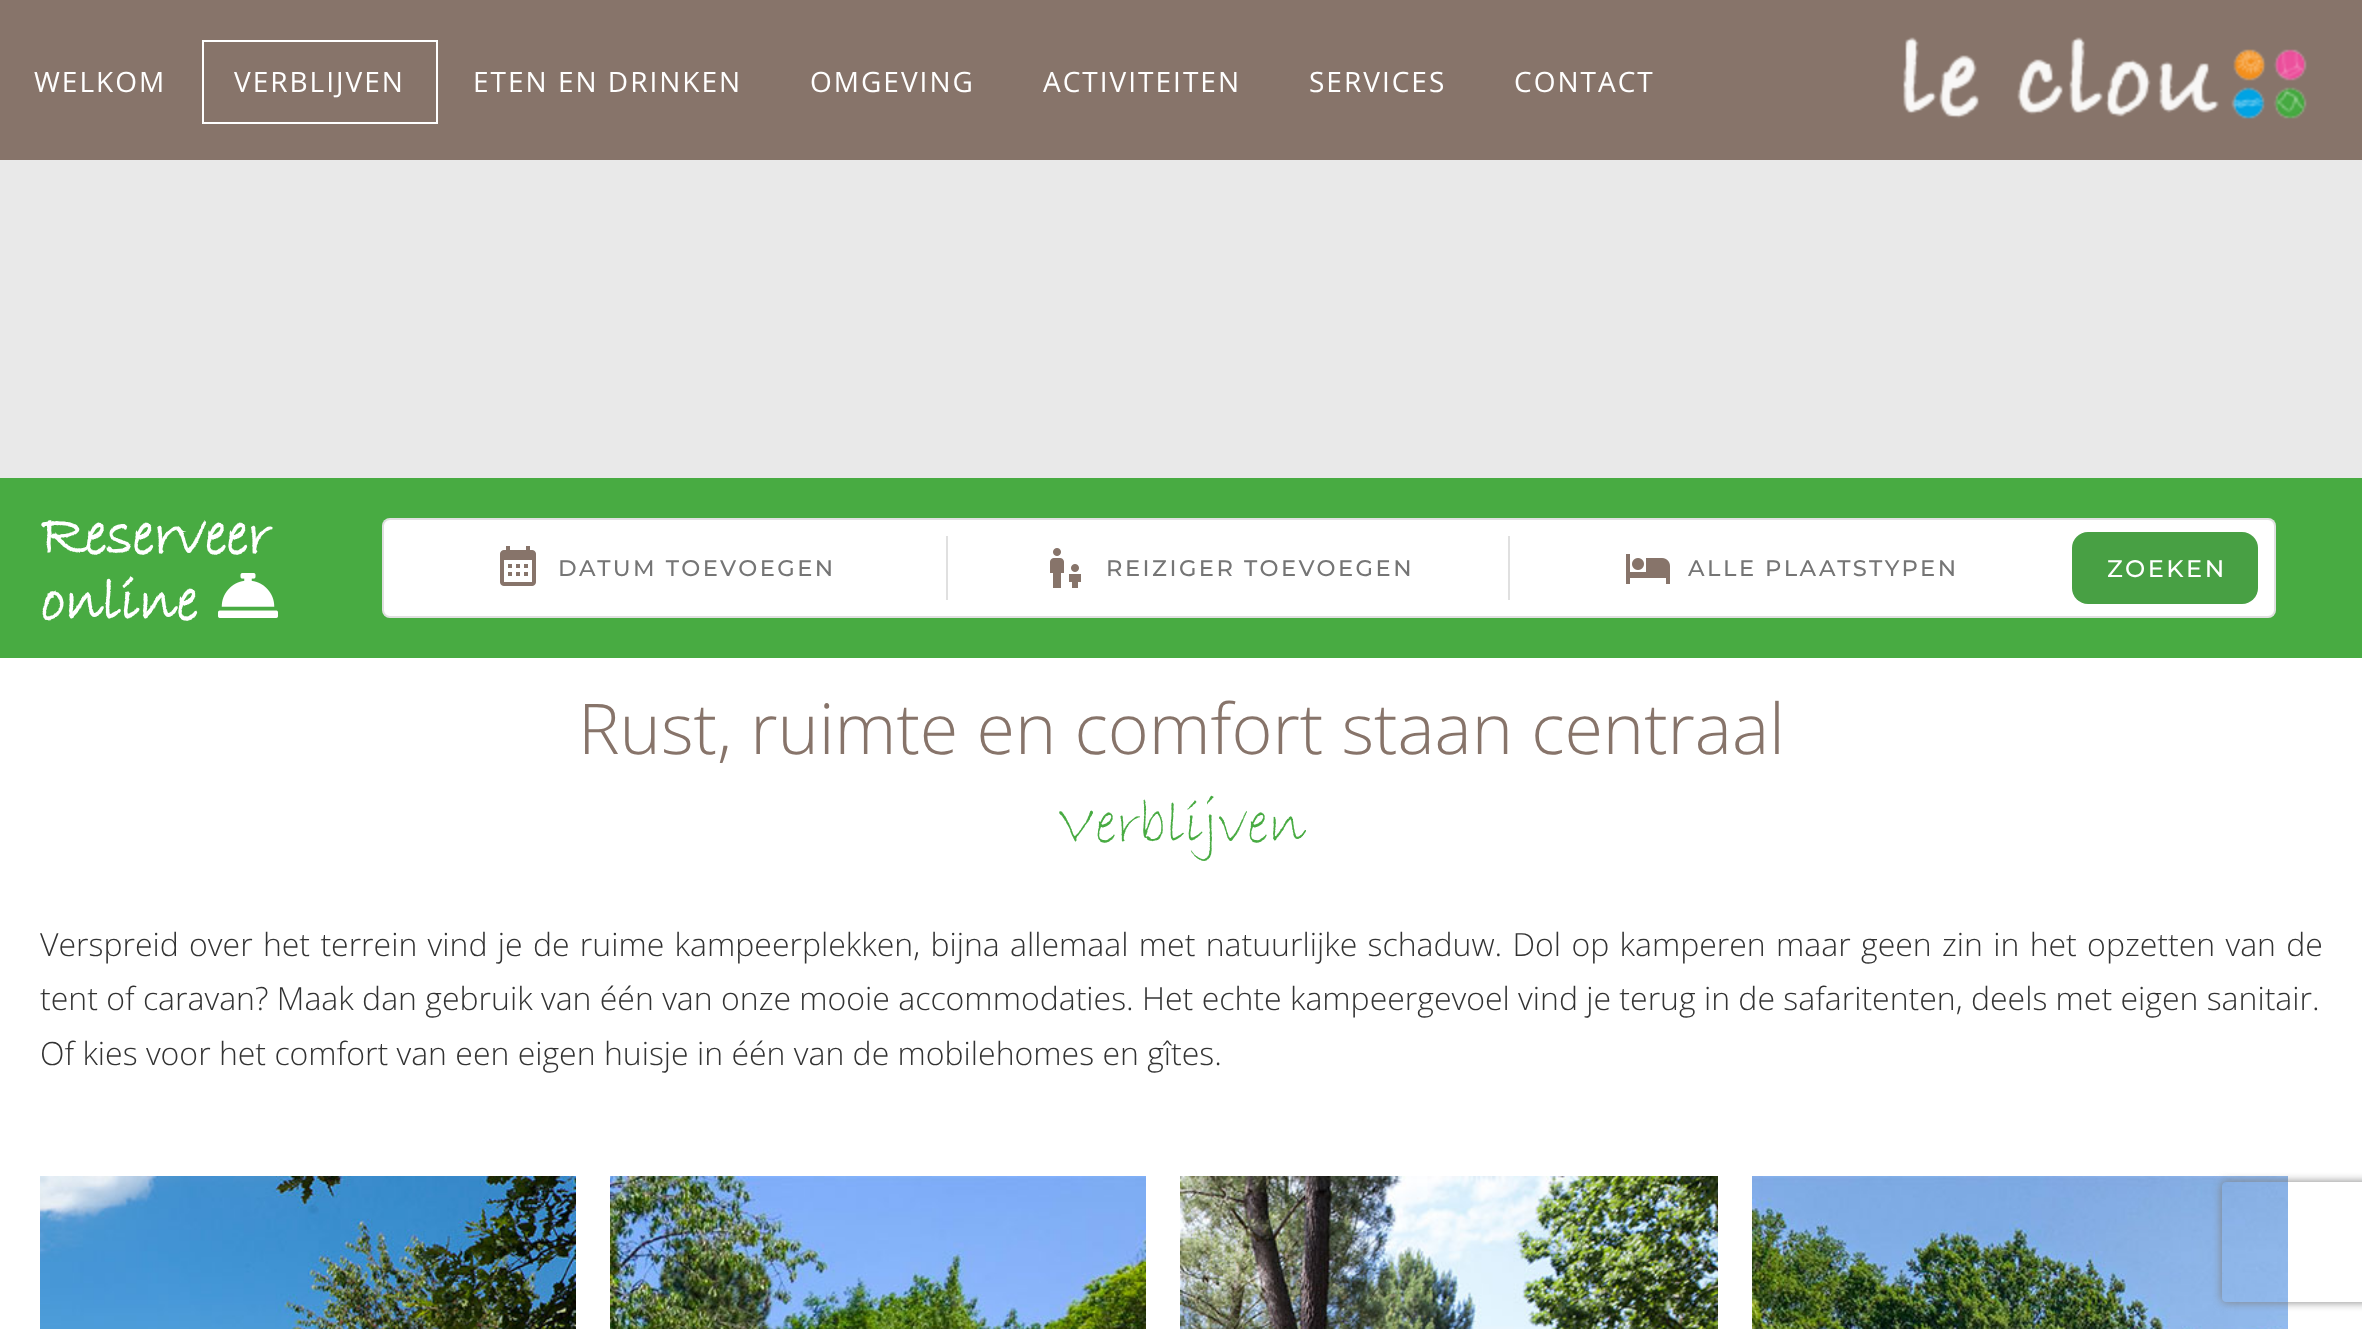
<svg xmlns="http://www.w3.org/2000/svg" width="2362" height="1329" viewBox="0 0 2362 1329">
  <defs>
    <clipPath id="clip1"><path d="M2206 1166H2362V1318H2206ZM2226 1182H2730C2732 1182 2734 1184 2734 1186V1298C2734 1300 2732 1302 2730 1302H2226C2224 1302 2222 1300 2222 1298V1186C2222 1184 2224 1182 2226 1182Z" clip-rule="evenodd"/></clipPath>
  </defs>
  <rect width="100%" height="100%" fill="rgb(255,255,255)"/>
  <rect x="0" y="0" width="2362" height="160" fill="rgb(135,116,106)"/>
  <text x="34" y="92" font-family="Open Sans" font-size="28" letter-spacing="2" fill="rgb(255,255,255)">WELKOM</text>
  <rect x="203" y="41" width="234" height="82" fill="none" stroke="rgb(255,255,255)" stroke-width="2"/>
  <g font-family="Open Sans" font-size="28" letter-spacing="2" fill="rgb(255,255,255)">
    <text x="234" y="92">VERBLIJVEN</text>
    <text x="473" y="92">ETEN EN DRINKEN</text>
    <text x="810" y="92">OMGEVING</text>
    <text x="1043" y="92">ACTIVITEITEN</text>
    <text x="1309" y="92">SERVICES</text>
    <text x="1514" y="92">CONTACT</text>
  </g>
  <image x="1903" y="37" width="404" height="82" href="pic1.png"/>
  <rect x="0" y="160" width="2362" height="318" fill="rgb(233,233,233)"/>
  <rect x="0" y="478" width="2362" height="180" fill="rgb(72,171,66)"/>
  <g font-family="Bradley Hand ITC" font-size="60" font-weight="bold" fill="rgb(255,255,255)">
    <text>
      <tspan x="40" y="552">Reserveer</tspan>
      <tspan x="40" y="618">online</tspan>
    </text>
  </g>
  <image x="218" y="573" width="60" height="45" href="pic2.png"/>
  <rect x="382" y="518" width="1894" height="100" rx="8" fill="rgb(255,255,255)"/>
  <rect x="383" y="519" width="1892" height="98" rx="7" fill="none" stroke="rgba(0,0,0,0.12)" stroke-width="2"/>
  <image x="500" y="546" width="36" height="40" href="pic3.png"/>
  <text x="558" y="576" font-family="Montserrat" font-size="22.6" font-weight="500" letter-spacing="2.5" fill="rgb(117,117,117)">DATUM TOEVOEGEN</text>
  <rect x="946" y="536" width="2" height="64" fill="rgb(224,224,224)"/>
  <image x="1050" y="548" width="31" height="40" href="pic4.png"/>
  <text x="1106" y="576" font-family="Montserrat" font-size="22.6" font-weight="500" letter-spacing="2.5" fill="rgb(117,117,117)">REIZIGER TOEVOEGEN</text>
  <rect x="1508" y="536" width="2" height="64" fill="rgb(224,224,224)"/>
  <image x="1626" y="554" width="44" height="30" href="pic5.png"/>
  <text x="1688" y="576" font-family="Montserrat" font-size="22.6" font-weight="500" letter-spacing="2.5" fill="rgb(117,117,117)">ALLE PLAATSTYPEN</text>
  <rect x="2072" y="532" width="186" height="72" rx="16" fill="rgb(72,160,68)"/>
  <text x="2107" y="577" font-family="Montserrat" font-size="24" font-weight="500" letter-spacing="2.5" fill="rgb(255,255,255)">ZOEKEN</text>
  <text x="578" y="754" font-family="Open Sans" font-size="70" font-weight="300" fill="rgb(135,116,106)">Rust, ruimte en comfort staan centraal</text>
  <text x="1057" y="840" font-family="Bradley Hand ITC" font-size="60" fill="rgb(72,171,66)">Verblijven</text>
  <g font-family="Open Sans" font-size="32" font-weight="300" fill="rgb(51,51,51)">
    <text>
      <tspan x="40" y="956" word-spacing="2">Verspreid over het terrein vind je de ruime kampeerplekken, bijna allemaal met natuurlijke schaduw. Dol op kamperen maar geen zin in het opzetten van de</tspan>
      <tspan x="40" y="1010">tent of caravan? Maak dan gebruik van één van onze mooie accommodaties. Het echte kampeergevoel vind je terug in de safaritenten, deels met eigen sanitair.</tspan>
      <tspan x="40" y="1065">Of kies voor het comfort van een eigen huisje in één van de mobilehomes en gîtes.</tspan>
    </text>
  </g>
  <image x="40" y="1176" width="536" height="153" href="pic6.png"/>
  <image x="610" y="1176" width="536" height="153" href="pic7.png"/>
  <image x="1180" y="1176" width="538" height="153" href="pic8.png"/>
  <image x="1752" y="1176" width="536" height="153" href="pic9.png"/>
  <g clip-path="url(#clip1)">
    <rect x="2222" y="1182" width="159" height="120" rx="4" fill="rgb(128,128,128)" filter="blur(5px)"/>
  </g>
</svg>
